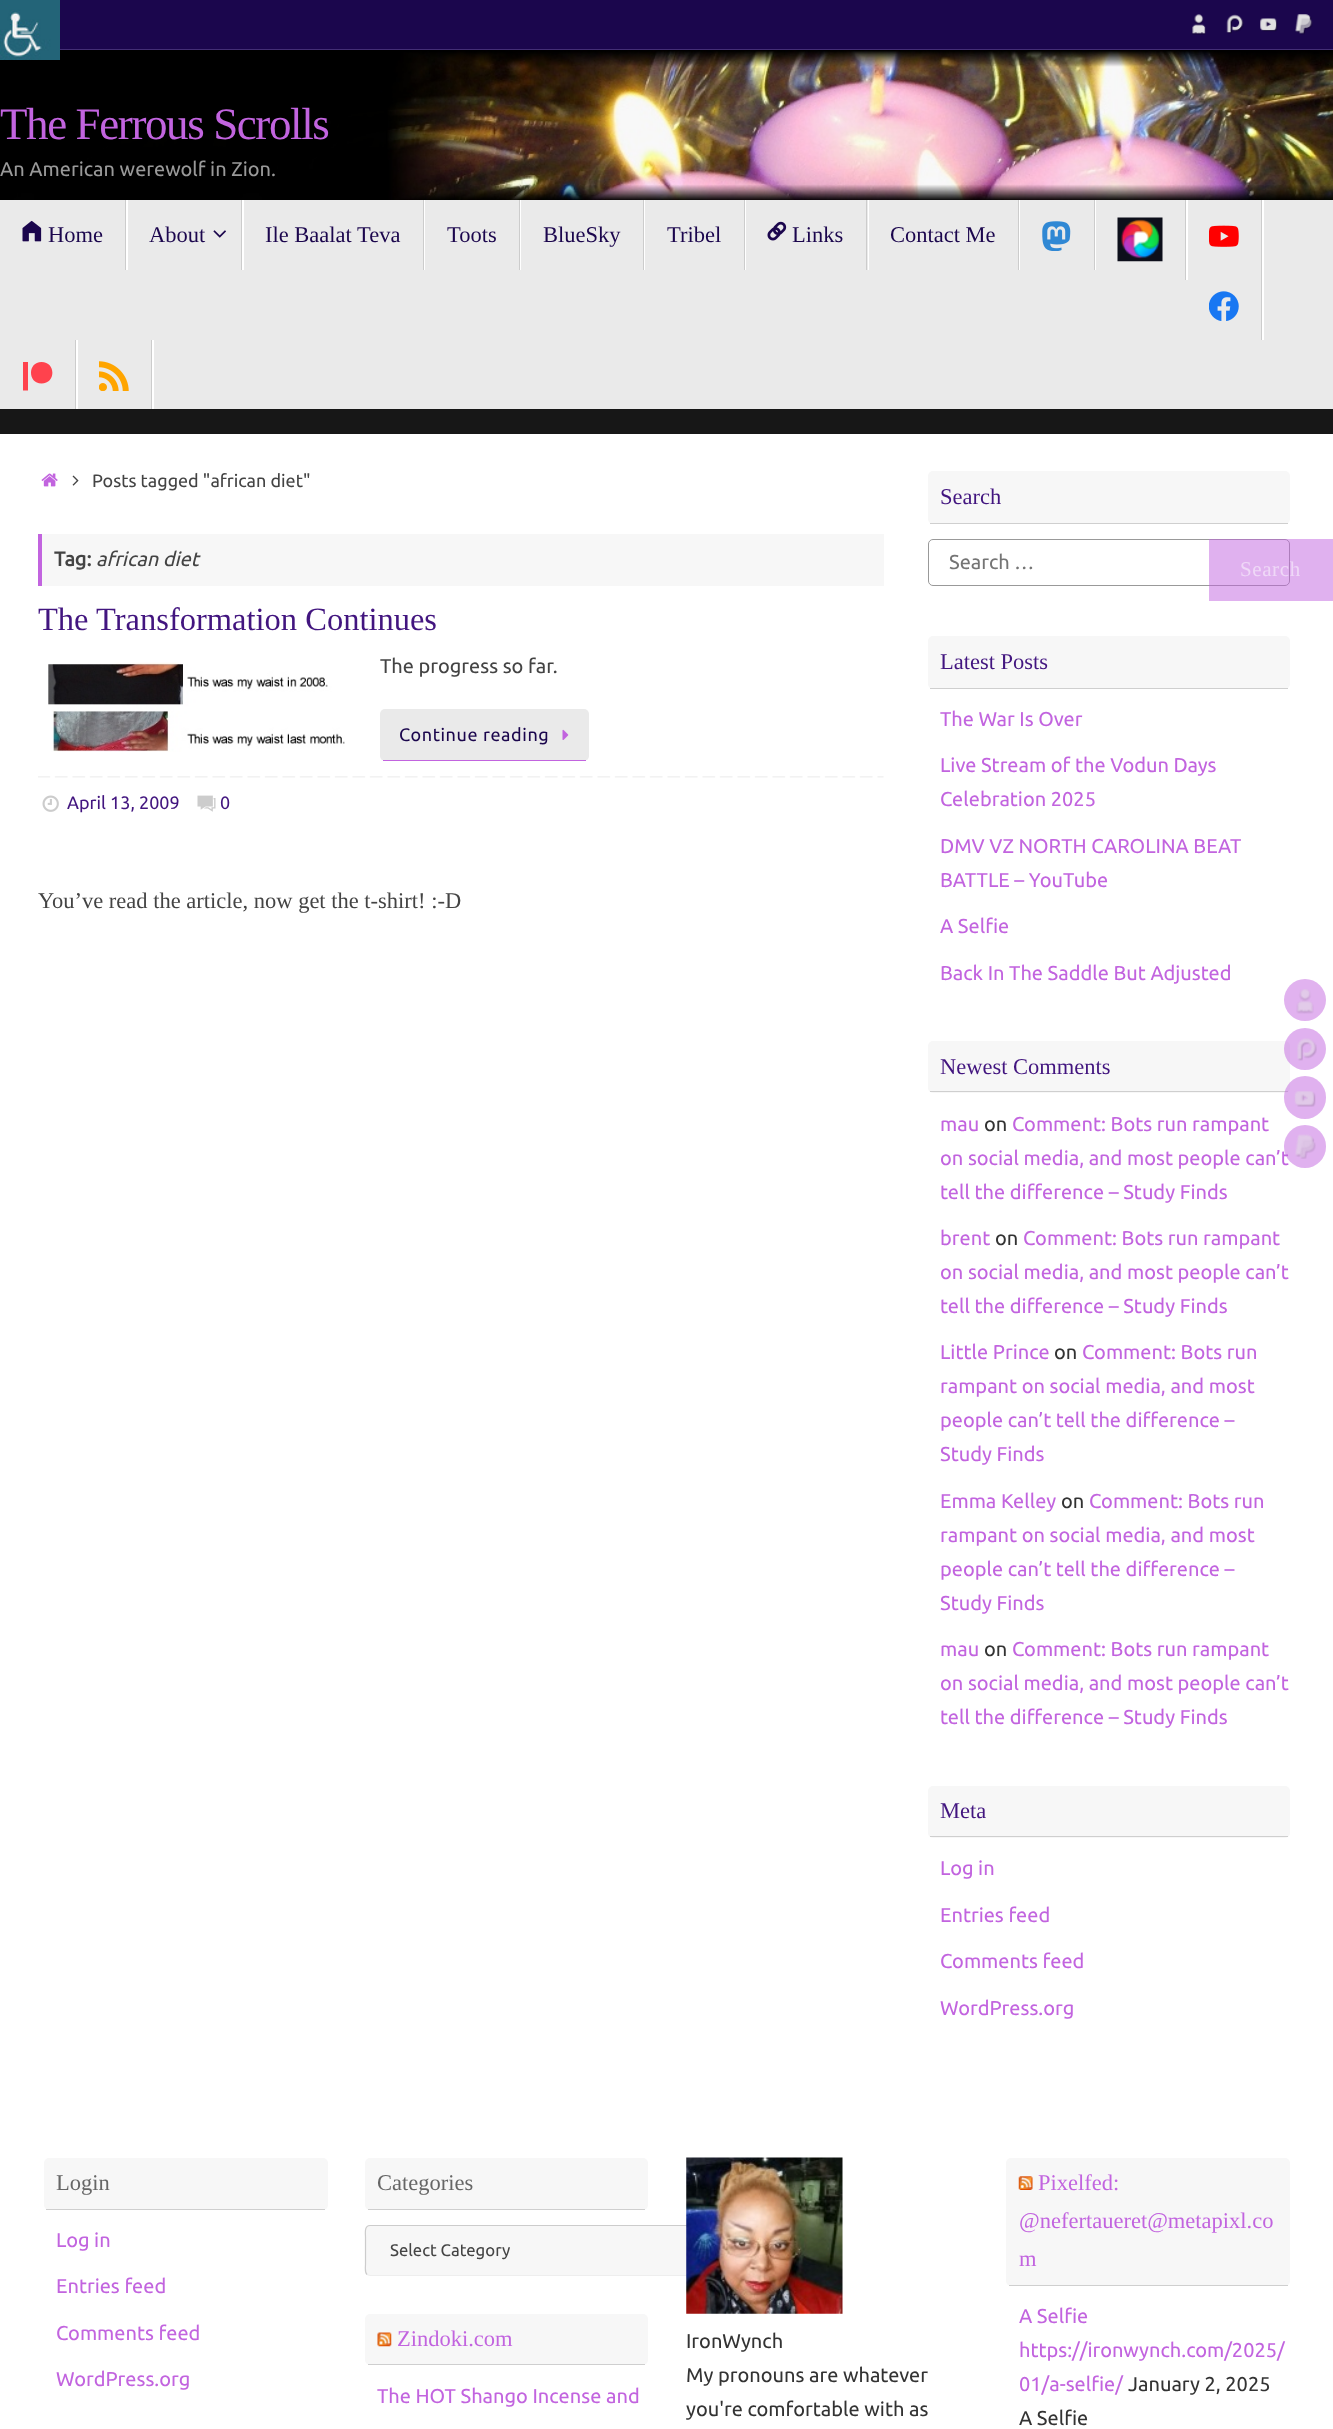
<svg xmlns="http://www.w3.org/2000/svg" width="1333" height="2429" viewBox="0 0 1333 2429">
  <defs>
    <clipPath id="clip1"><rect x="23" y="361" width="30" height="30"/></clipPath>
  </defs>
  <rect width="100%" height="100%" fill="rgb(23,23,23)"/>
  <image x="0" y="50" width="1333" height="150" href="pic6.png"/>
  <image x="0" y="0" width="60" height="60" href="pic1.png"/>
  <rect x="60" y="0" width="1273" height="49" fill="rgb(27,6,77)"/>
  <rect x="60" y="49" width="1273" height="1" fill="rgb(67,46,117)"/>
  <image x="1192" y="14" width="14" height="21" href="pic2.png"/>
  <image x="1226" y="14" width="18" height="20" href="pic3.png"/>
  <image x="1260" y="18" width="18" height="14" href="pic4.png"/>
  <image x="1295" y="14" width="18" height="21" href="pic5.png"/>
  <text x="0" y="139" font-family="Liberation Serif" font-size="45" letter-spacing="-1.4" fill="rgb(194,100,223)">The Ferrous Scrolls</text>
  <text x="0" y="176" font-family="Ubuntu" font-size="20" fill="rgb(153,153,153)">An American werewolf in Zion.</text>
  <rect x="0" y="200" width="1333" height="209" fill="rgb(234,234,234)"/>
  <rect x="126" y="200" width="2" height="70" fill="rgb(255,255,255)"/>
  <rect x="125" y="200" width="1" height="70" fill="rgb(204,204,204)"/>
  <image x="22" y="220" width="20" height="22" href="pic7.png"/>
  <text x="48" y="242" font-family="Liberation Serif" font-size="22.5" fill="rgb(27,6,77)">Home</text>
  <rect x="242" y="200" width="2" height="70" fill="rgb(255,255,255)"/>
  <rect x="241" y="200" width="1" height="70" fill="rgb(204,204,204)"/>
  <text x="149" y="242" font-family="Liberation Serif" font-size="22.5" fill="rgb(27,6,77)">About</text>
  <image x="213" y="230" width="13" height="8" href="pic8.png"/>
  <rect x="424" y="200" width="1" height="70" fill="rgb(255,255,255)"/>
  <rect x="423" y="200" width="1" height="70" fill="rgb(204,204,204)"/>
  <text x="265" y="242" font-family="Liberation Serif" font-size="22.5" fill="rgb(27,6,77)">Ile Baalat Teva</text>
  <rect x="520" y="200" width="1" height="70" fill="rgb(255,255,255)"/>
  <rect x="519" y="200" width="1" height="70" fill="rgb(204,204,204)"/>
  <text x="447" y="242" font-family="Liberation Serif" font-size="22.5" fill="rgb(27,6,77)">Toots</text>
  <rect x="644" y="200" width="1" height="70" fill="rgb(255,255,255)"/>
  <rect x="643" y="200" width="1" height="70" fill="rgb(204,204,204)"/>
  <text x="543" y="242" font-family="Liberation Serif" font-size="22.5" fill="rgb(27,6,77)">BlueSky</text>
  <rect x="745" y="200" width="1" height="70" fill="rgb(255,255,255)"/>
  <rect x="744" y="200" width="1" height="70" fill="rgb(204,204,204)"/>
  <text x="667" y="242" font-family="Liberation Serif" font-size="22.5" fill="rgb(27,6,77)">Tribel</text>
  <rect x="868" y="200" width="1" height="70" fill="rgb(255,255,255)"/>
  <rect x="866" y="200" width="1" height="70" fill="rgb(204,204,204)"/>
  <image x="767" y="221" width="20" height="20" href="pic9.png"/>
  <text x="792" y="242" font-family="Liberation Serif" font-size="22.5" fill="rgb(27,6,77)">Links</text>
  <rect x="1019" y="200" width="1" height="70" fill="rgb(255,255,255)"/>
  <rect x="1018" y="200" width="1" height="70" fill="rgb(204,204,204)"/>
  <text x="890" y="242" font-family="Liberation Serif" font-size="22.5" fill="rgb(27,6,77)">Contact Me</text>
  <rect x="1095" y="200" width="1" height="70" fill="rgb(255,255,255)"/>
  <rect x="1094" y="200" width="1" height="70" fill="rgb(204,204,204)"/>
  <image x="1042" y="221" width="29" height="30" href="pic10.png"/>
  <rect x="1186" y="200" width="2" height="80" fill="rgb(255,255,255)"/>
  <rect x="1185" y="200" width="1" height="80" fill="rgb(204,204,204)"/>
  <image x="1117" y="217" width="46" height="45" href="pic11.png"/>
  <rect x="1262" y="200" width="2" height="140" fill="rgb(255,255,255)"/>
  <rect x="1261" y="200" width="1" height="140" fill="rgb(204,204,204)"/>
  <image x="1209" y="225" width="30" height="22" href="pic12.png"/>
  <image x="1209" y="291" width="30" height="30" href="pic13.png"/>
  <path d="M1 409H78V340H76V409Z" fill="rgb(255,255,255)"/>
  <rect x="75" y="340" width="1" height="69" fill="rgb(204,204,204)"/>
  <g clip-path="url(#clip1)">
    <path d="M22.5 362V390.5H28V362ZM41.5 362C27.5 362 27.5 383.5 41.5 383.5C56 383.5 56 362 41.5 362Z" fill="rgb(255,66,77)"/>
  </g>
  <path d="M78 409H154V340H152V409Z" fill="rgb(255,255,255)"/>
  <rect x="151" y="340" width="1" height="69" fill="rgb(204,204,204)"/>
  <image x="99" y="361" width="30" height="30" href="pic14.png"/>
  <rect x="0" y="434" width="1333" height="1995" fill="rgb(255,255,255)"/>
  <image x="41" y="473" width="17" height="14" href="pic15.png"/>
  <image x="72" y="475" width="7" height="11" href="pic16.png"/>
  <text x="92" y="487" font-family="Ubuntu" font-size="18" fill="rgb(68,68,68)">Posts tagged "african diet"</text>
  <rect x="42" y="534" width="842" height="52" fill="rgb(247,247,247)"/>
  <rect x="38" y="534" width="4" height="52" fill="rgb(194,100,223)"/>
  <text x="54" y="566" font-family="Ubuntu" font-size="20" font-weight="bold" fill="rgb(68,68,68)">Tag:</text>
  <text x="96" y="566" font-family="Ubuntu" font-size="20" font-style="italic" fill="rgb(68,68,68)">african diet</text>
  <text x="38" y="630" font-family="Liberation Serif" font-size="32.5" fill="rgb(66,21,127)">The Transformation Continues</text>
  <image x="48" y="662" width="297" height="90" href="pic17.png"/>
  <text x="380" y="673" font-family="Ubuntu" font-size="20" fill="rgb(68,68,68)">The progress so far.</text>
  <rect x="380" y="709" width="209" height="52" rx="5" fill="rgb(234,234,234)"/>
  <rect x="383" y="760" width="203" height="1" fill="rgb(194,100,223)"/>
  <text x="399" y="741" font-family="Ubuntu" font-size="18" letter-spacing="0.6" fill="rgb(27,6,77)">Continue reading</text>
  <image x="562" y="729" width="7" height="11" href="pic18.png"/>
  <image x="38" y="776" width="846" height="2" href="pic19.png"/>
  <image x="42" y="795" width="17" height="17" href="pic20.png"/>
  <text x="67" y="809" font-family="Ubuntu" font-size="18" fill="rgb(66,21,127)">April 13, 2009</text>
  <image x="197" y="795" width="19" height="17" href="pic21.png"/>
  <text x="220" y="809" font-family="Ubuntu" font-size="18" fill="rgb(66,21,127)">0</text>
  <text x="38" y="908" font-family="Liberation Serif" font-size="22.5" fill="rgb(68,68,68)">You’ve read the article, now get the t-shirt! :-D</text>
  <rect x="928" y="471" width="362" height="53" rx="5" fill="rgb(247,247,247)"/>
  <rect x="930" y="523" width="358" height="1" fill="rgb(207,207,207)"/>
  <text x="940" y="504" font-family="Liberation Serif" font-size="22.5" fill="rgb(66,21,127)">Search</text>
  <rect x="928.5" y="539.5" width="361" height="46" rx="4.5" fill="none" stroke="rgb(153,153,153)"/>
  <text x="949" y="569" font-family="Ubuntu" font-size="20" fill="rgb(117,117,117)">Search …</text>
  <rect x="1209" y="539" width="124" height="62" fill="rgba(194,100,223,0.5)"/>
  <text x="1240" y="576" font-family="Liberation Serif" font-size="21" letter-spacing="0.6" fill="rgb(239,216,247)">Search</text>
  <rect x="928" y="636" width="362" height="53" rx="5" fill="rgb(247,247,247)"/>
  <rect x="930" y="688" width="358" height="1" fill="rgb(207,207,207)"/>
  <text x="940" y="669" font-family="Liberation Serif" font-size="22.5" fill="rgb(66,21,127)">Latest Posts</text>
  <g font-family="Ubuntu" font-size="20" fill="rgb(194,100,223)">
    <text x="940" y="726">The War Is Over</text>
    <text>
      <tspan x="940" y="772">Live Stream of the Vodun Days</tspan>
      <tspan x="940" y="806">Celebration 2025</tspan>
    </text>
    <text>
      <tspan x="940" y="853">DMV VZ NORTH CAROLINA BEAT</tspan>
      <tspan x="940" y="887">BATTLE – YouTube</tspan>
    </text>
    <text x="940" y="933">A Selfie</text>
    <text x="940" y="980">Back In The Saddle But Adjusted</text>
  </g>
  <rect x="928" y="1041" width="362" height="52" rx="5" fill="rgb(247,247,247)"/>
  <rect x="930" y="1091" width="358" height="1" fill="rgb(207,207,207)"/>
  <text x="940" y="1074" font-family="Liberation Serif" font-size="22.5" fill="rgb(66,21,127)">Newest Comments</text>
  <text x="940" y="1131" font-family="Ubuntu" font-size="20" fill="rgb(194,100,223)">mau</text>
  <text x="984" y="1131" font-family="Ubuntu" font-size="20" fill="rgb(51,51,51)">on</text>
  <g font-family="Ubuntu" font-size="20" fill="rgb(194,100,223)">
    <text x="1012" y="1131">Comment: Bots run rampant</text>
    <text>
      <tspan x="940" y="1165">on social media, and most people can’t</tspan>
      <tspan x="940" y="1199">tell the difference – Study Finds</tspan>
    </text>
    <text x="940" y="1245">brent</text>
  </g>
  <text x="995" y="1245" font-family="Ubuntu" font-size="20" fill="rgb(51,51,51)">on</text>
  <g font-family="Ubuntu" font-size="20" fill="rgb(194,100,223)">
    <text x="1023" y="1245">Comment: Bots run rampant</text>
    <text>
      <tspan x="940" y="1279">on social media, and most people can’t</tspan>
      <tspan x="940" y="1313">tell the difference – Study Finds</tspan>
    </text>
    <text x="940" y="1359">Little Prince</text>
  </g>
  <text x="1054" y="1359" font-family="Ubuntu" font-size="20" fill="rgb(51,51,51)">on</text>
  <g font-family="Ubuntu" font-size="20" fill="rgb(194,100,223)">
    <text x="1082" y="1359">Comment: Bots run</text>
    <text>
      <tspan x="940" y="1393">rampant on social media, and most</tspan>
      <tspan x="940" y="1427">people can’t tell the difference –</tspan>
      <tspan x="940" y="1461">Study Finds</tspan>
    </text>
    <text x="940" y="1508">Emma Kelley</text>
  </g>
  <text x="1061" y="1508" font-family="Ubuntu" font-size="20" fill="rgb(51,51,51)">on</text>
  <g font-family="Ubuntu" font-size="20" fill="rgb(194,100,223)">
    <text x="1089" y="1508">Comment: Bots run</text>
    <text>
      <tspan x="940" y="1542">rampant on social media, and most</tspan>
      <tspan x="940" y="1576">people can’t tell the difference –</tspan>
      <tspan x="940" y="1610">Study Finds</tspan>
    </text>
    <text x="940" y="1656">mau</text>
  </g>
  <text x="984" y="1656" font-family="Ubuntu" font-size="20" fill="rgb(51,51,51)">on</text>
  <g font-family="Ubuntu" font-size="20" fill="rgb(194,100,223)">
    <text x="1012" y="1656">Comment: Bots run rampant</text>
    <text>
      <tspan x="940" y="1690">on social media, and most people can’t</tspan>
      <tspan x="940" y="1724">tell the difference – Study Finds</tspan>
    </text>
  </g>
  <rect x="928" y="1786" width="362" height="52" rx="5" fill="rgb(247,247,247)"/>
  <rect x="930" y="1836" width="358" height="1" fill="rgb(207,207,207)"/>
  <text x="940" y="1818" font-family="Liberation Serif" font-size="22.5" fill="rgb(66,21,127)">Meta</text>
  <g font-family="Ubuntu" font-size="20" fill="rgb(194,100,223)">
    <text x="940" y="1875">Log in</text>
    <text x="940" y="1922">Entries feed</text>
    <text x="940" y="1968">Comments feed</text>
    <text x="940" y="2015">WordPress.org</text>
  </g>
  <rect x="44" y="2158" width="284" height="52" rx="5" fill="rgb(247,247,247)"/>
  <rect x="46" y="2209" width="279" height="1" fill="rgb(207,207,207)"/>
  <text x="56" y="2190" font-family="Liberation Serif" font-size="22.5" fill="rgb(102,102,102)">Login</text>
  <g font-family="Ubuntu" font-size="20" fill="rgb(194,100,223)">
    <text x="56" y="2247">Log in</text>
    <text x="56" y="2293">Entries feed</text>
    <text x="56" y="2340">Comments feed</text>
    <text x="56" y="2386">WordPress.org</text>
  </g>
  <rect x="365" y="2158" width="283" height="52" rx="5" fill="rgb(247,247,247)"/>
  <rect x="368" y="2209" width="277" height="1" fill="rgb(207,207,207)"/>
  <text x="377" y="2190" font-family="Liberation Serif" font-size="22.5" fill="rgb(102,102,102)">Categories</text>
  <rect x="365" y="2225" width="380" height="51" rx="5" fill="rgb(247,247,247)"/>
  <path d="M743 2227C745.5 2229.5 744.5 2234.5 744.5 2237V2264.5C744.5 2267.5 746 2275.5 740 2275.5H370L367 2274.5" fill="none" stroke="rgb(238,238,238)" stroke-width="1.2"/>
  <path d="M367 2274.5C364.5 2272 365.5 2266.5 365.5 2264.5V2237C365.5 2233.5 364 2225.5 370 2225.5H740L743 2227" fill="none" stroke="rgb(204,204,204)" stroke-width="1.2"/>
  <text x="390" y="2256" font-family="Ubuntu" font-size="16.75" fill="rgb(68,68,68)">Select Category</text>
  <rect x="365" y="2314" width="283" height="51" rx="5" fill="rgb(247,247,247)"/>
  <rect x="368" y="2364" width="277" height="1" fill="rgb(207,207,207)"/>
  <image x="377" y="2332" width="15" height="15" href="pic22.png"/>
  <text x="397" y="2346" font-family="Liberation Serif" font-size="22.5" fill="rgb(194,100,223)">Zindoki.com</text>
  <text x="377" y="2403" font-family="Ubuntu" font-size="20" fill="rgb(194,100,223)">The HOT Shango Incense and</text>
  <image x="686" y="2157" width="157" height="157" href="pic23.png"/>
  <g font-family="Ubuntu" font-size="20" fill="rgb(51,51,51)">
    <text>
      <tspan x="686" y="2348">IronWynch</tspan>
      <tspan x="686" y="2382">My pronouns are whatever</tspan>
      <tspan x="686" y="2416">you're comfortable with as</tspan>
    </text>
  </g>
  <rect x="1006" y="2158" width="284" height="128" rx="5" fill="rgb(247,247,247)"/>
  <rect x="1009" y="2285" width="279" height="1" fill="rgb(207,207,207)"/>
  <image x="1018" y="2176" width="15" height="14" href="pic24.png"/>
  <g font-family="Liberation Serif" font-size="22.5" fill="rgb(194,100,223)">
    <text x="1038" y="2190">Pixelfed:</text>
    <text>
      <tspan x="1019" y="2228">@nefertaueret@metapixl.co</tspan>
      <tspan x="1019" y="2266">m</tspan>
    </text>
  </g>
  <g font-family="Ubuntu" font-size="20" fill="rgb(194,100,223)">
    <text>
      <tspan x="1019" y="2323">A Selfie</tspan>
      <tspan x="1019" y="2357">https://ironwynch.com/2025/</tspan>
      <tspan x="1019" y="2391">01/a-selfie/</tspan>
    </text>
  </g>
  <g font-family="Ubuntu" font-size="20" fill="rgb(51,51,51)">
    <text x="1128" y="2391">January 2, 2025</text>
    <text x="1019" y="2425">A Selfie</text>
  </g>
  <circle cx="1305" cy="1000" r="21" fill="rgb(225,178,239)"/>
  <image x="1296" y="989" width="18" height="25" href="pic25.png"/>
  <circle cx="1305" cy="1049" r="21" fill="rgba(194,100,223,0.5)"/>
  <image x="1297" y="1038" width="20" height="23" href="pic26.png"/>
  <rect x="1284" y="1076" width="42" height="43" rx="21" fill="rgba(194,100,223,0.5)"/>
  <image x="1294" y="1091" width="22" height="16" href="pic27.png"/>
  <rect x="1284" y="1125" width="42" height="43" rx="21" fill="rgba(194,100,223,0.5)"/>
  <image x="1295" y="1134" width="21" height="25" href="pic28.png"/>
</svg>
